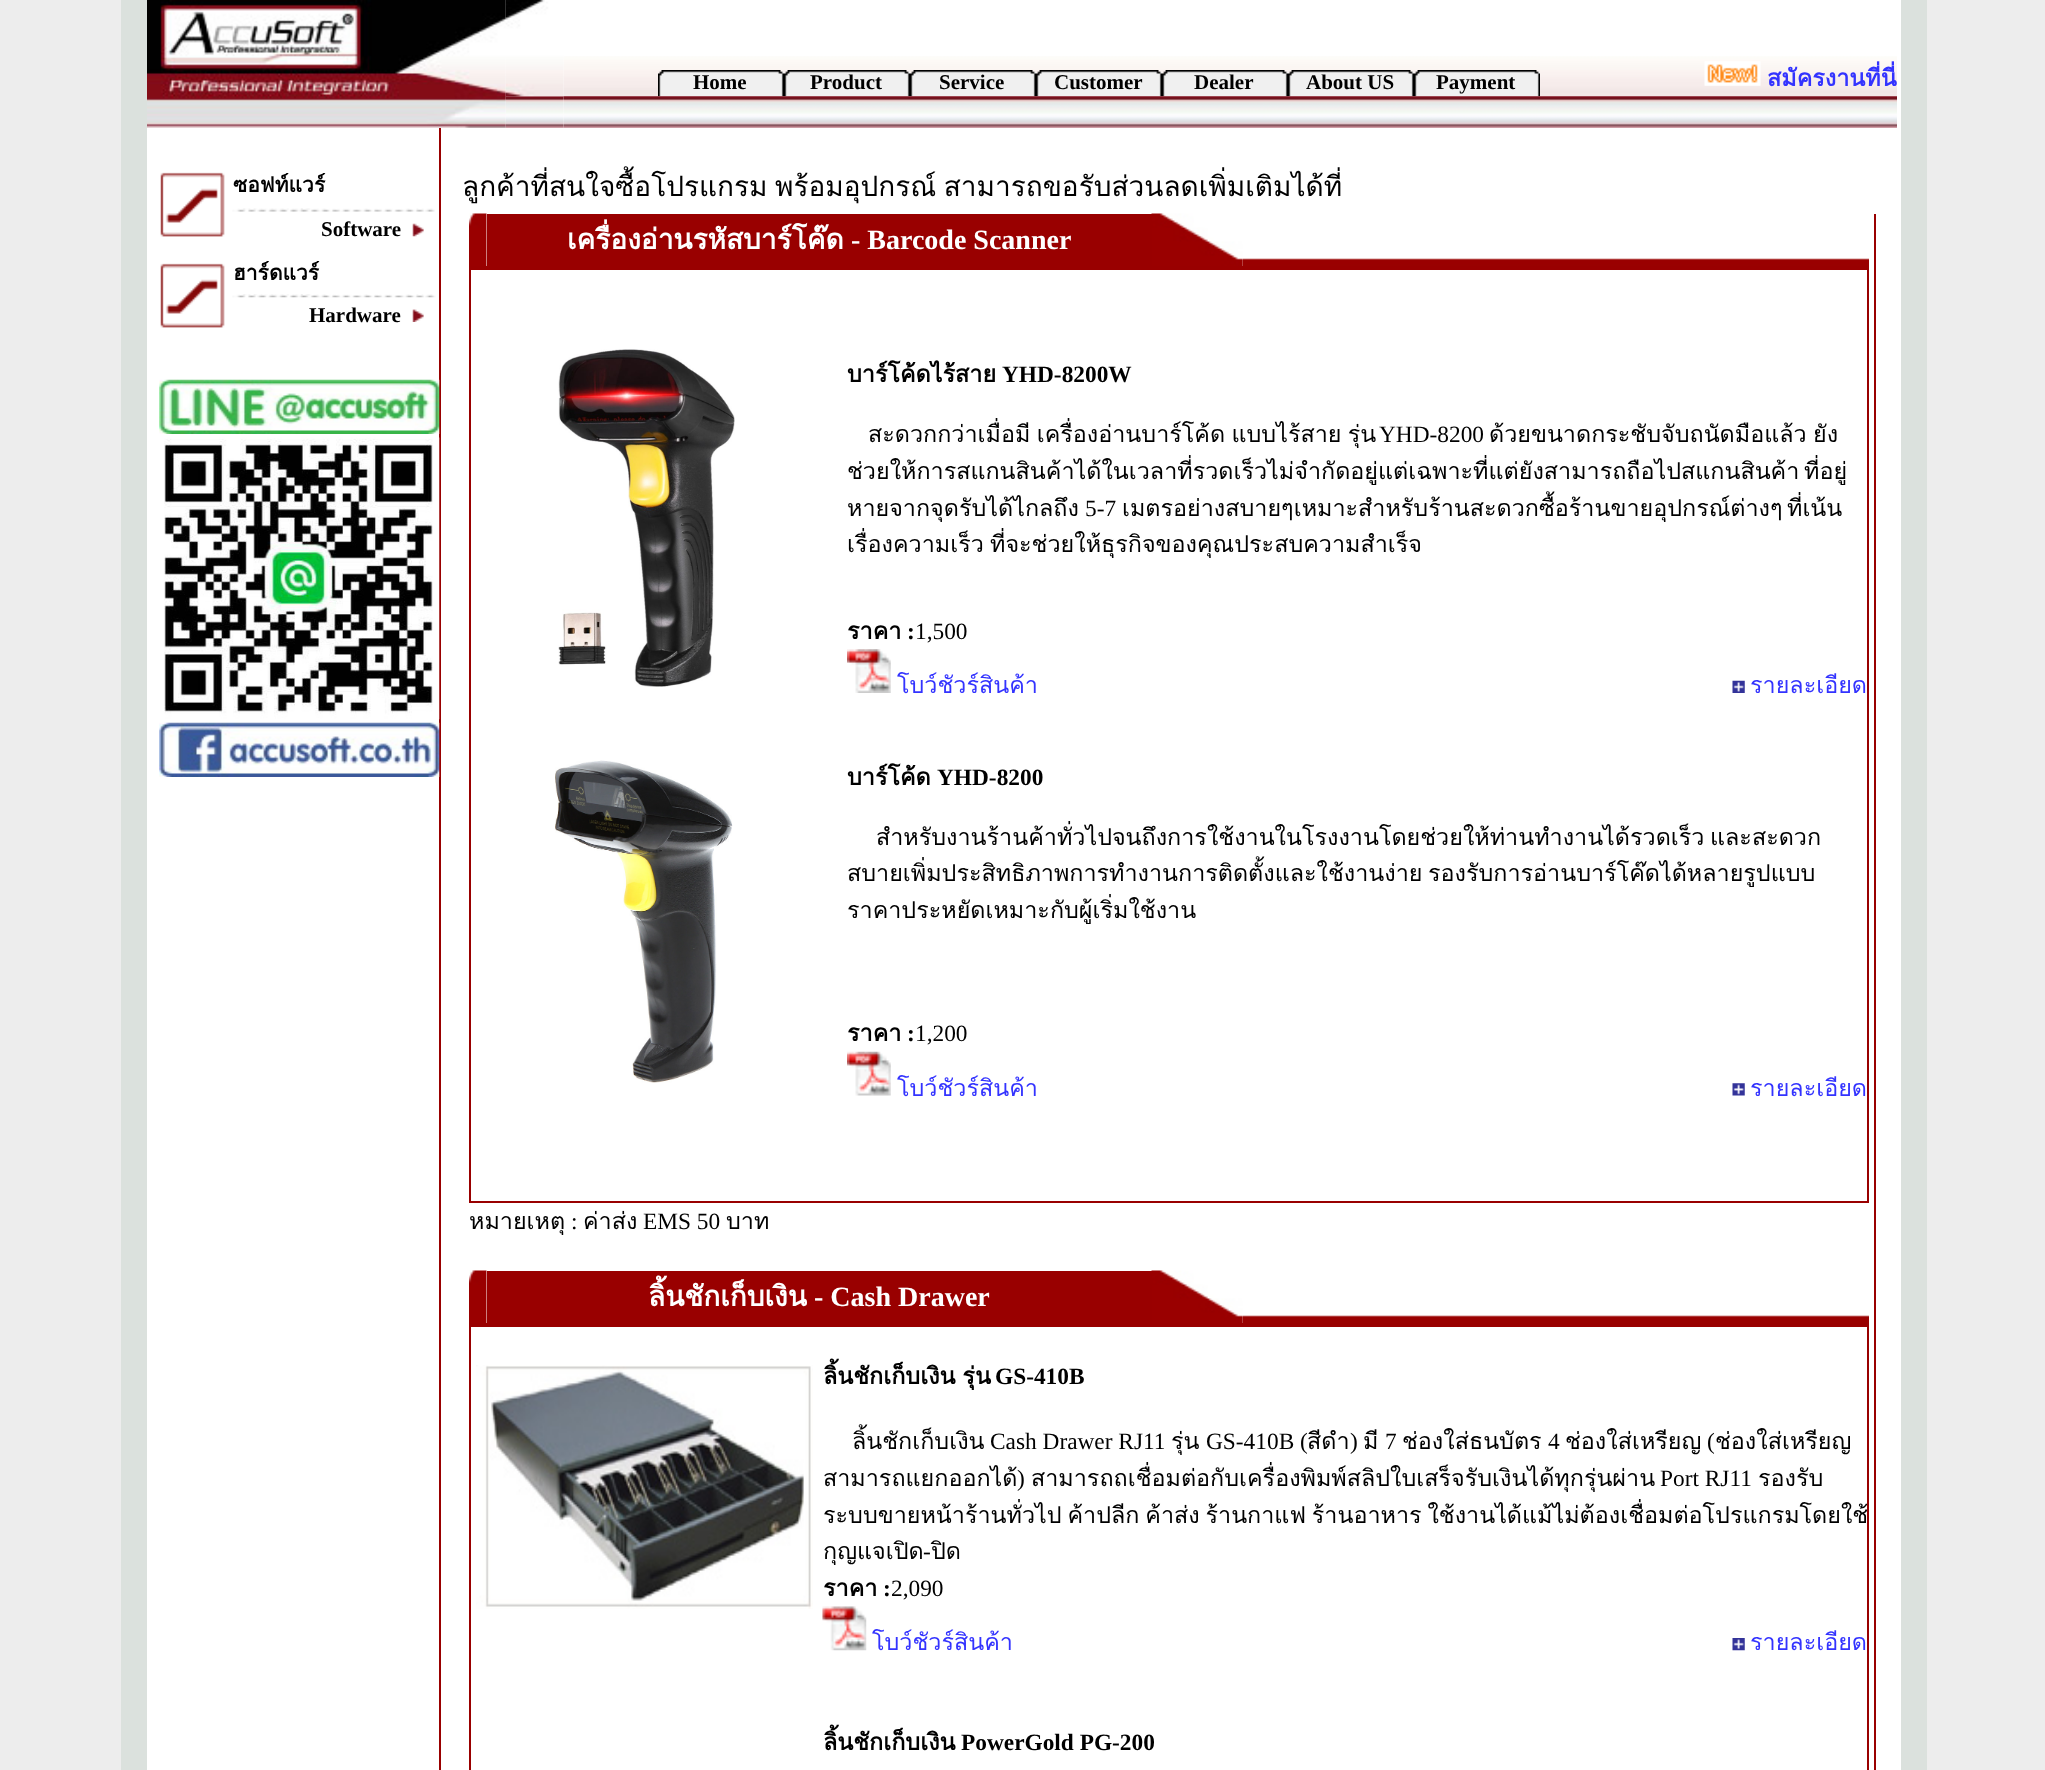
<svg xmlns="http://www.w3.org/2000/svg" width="2045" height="1770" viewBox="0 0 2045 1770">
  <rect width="100%" height="100%" fill="rgb(237,237,237)"/>
  <rect x="121" y="0" width="1806" height="1770" fill="rgb(219,225,221)"/>
  <rect x="147" y="0" width="1754" height="1770" fill="rgb(255,255,255)"/>
  <image x="563" y="56" width="95" height="41" href="pic3.png"/>
  <image x="505" y="96" width="59" height="32" href="pic9.png"/>
  <image x="147" y="0" width="359" height="128" href="pic1.png"/>
  <image x="658" y="56" width="126" height="41" href="pic4.png"/>
  <image x="658" y="70" width="126" height="27" href="pic5.png"/>
  <image x="784" y="56" width="126" height="41" href="pic4.png"/>
  <image x="784" y="70" width="126" height="27" href="pic6.png"/>
  <image x="910" y="56" width="126" height="41" href="pic4.png"/>
  <image x="910" y="70" width="126" height="27" href="pic6.png"/>
  <image x="1036" y="56" width="126" height="41" href="pic4.png"/>
  <image x="1036" y="70" width="126" height="27" href="pic6.png"/>
  <image x="1162" y="56" width="126" height="41" href="pic4.png"/>
  <image x="1162" y="70" width="126" height="27" href="pic6.png"/>
  <image x="1288" y="56" width="126" height="41" href="pic4.png"/>
  <image x="1288" y="70" width="126" height="27" href="pic6.png"/>
  <image x="1414" y="56" width="126" height="41" href="pic4.png"/>
  <image x="1414" y="70" width="126" height="27" href="pic6.png"/>
  <image x="1540" y="56" width="357" height="41" href="pic7.png"/>
  <image x="563" y="96" width="1334" height="32" href="pic10.png"/>
  <image x="505" y="0" width="59" height="97" href="pic2.png"/>
  <g font-family="Liberation Serif" font-size="21" font-weight="bold" fill="rgb(0,0,0)">
    <text x="693" y="89">Home</text>
    <text x="810" y="89">Product</text>
    <text x="939" y="89">Service</text>
    <text x="1054" y="89">Customer</text>
    <text x="1194" y="89">Dealer</text>
    <text x="1306" y="89">About US</text>
    <text x="1436" y="89">Payment</text>
  </g>
  <image x="1704" y="61" width="57" height="25" href="pic8.png"/>
  <text x="1767" y="86" font-family="Loma" font-size="23.35" font-weight="bold" fill="rgb(51,51,255)">สมัครงานที่นี่</text>
  <image x="160" y="172" width="65" height="65" href="pic11.png"/>
  <text x="233" y="192" font-family="Loma" font-size="21" font-weight="bold" fill="rgb(0,0,0)">ซอฟท์แวร์</text>
  <image x="232" y="208" width="203" height="4" href="pic12.png"/>
  <text x="321" y="236" font-family="Liberation Serif" font-size="21" font-weight="bold" fill="rgb(0,0,0)">Software</text>
  <image x="412" y="223" width="12" height="14" href="pic13.png"/>
  <image x="160" y="263" width="65" height="65" href="pic14.png"/>
  <text x="233" y="280" font-family="Loma" font-size="21" font-weight="bold" fill="rgb(0,0,0)">ฮาร์ดแวร์</text>
  <image x="232" y="294" width="204" height="4" href="pic15.png"/>
  <text x="309" y="322" font-family="Liberation Serif" font-size="21" font-weight="bold" fill="rgb(0,0,0)">Hardware</text>
  <image x="412" y="309" width="12" height="13" href="pic16.png"/>
  <rect x="439" y="128" width="2" height="1642" fill="rgb(153,0,0)"/>
  <image x="159" y="379" width="281" height="55" href="pic17.png"/>
  <image x="164" y="437" width="276" height="283" href="pic18.png"/>
  <image x="159" y="722" width="281" height="55" href="pic19.png"/>
  <text x="462" y="196" word-spacing="-2" font-family="Loma" font-size="28" fill="rgb(0,0,0)">ลูกค้าที่สนใจซื้อโปรแกรม พร้อมอุปกรณ์ สามารถขอรับส่วนลดเพิ่มเติมได้ที่</text>
  <image x="469" y="213" width="18" height="53" href="pic20.png"/>
  <rect x="487" y="214" width="665" height="52" fill="rgb(153,0,0)"/>
  <text x="567" y="249" font-family="Loma" font-size="28" font-weight="bold" fill="rgb(255,255,255)">เครื่องอ่านรหัสบาร์โค๊ด</text>
  <text x="851" y="249" font-family="Liberation Serif" font-size="28" font-weight="bold" fill="rgb(255,255,255)">- Barcode Scanner</text>
  <image x="1242" y="258" width="627" height="8" href="pic22.png"/>
  <image x="1151" y="213" width="92" height="53" href="pic21.png"/>
  <rect x="469" y="266" width="1400" height="4" fill="rgb(153,0,0)"/>
  <rect x="469" y="270" width="2" height="931" fill="rgb(153,0,0)"/>
  <image x="558" y="349" width="177" height="338" href="pic23.png"/>
  <text x="847" y="382" font-family="Loma" font-size="23.35" font-weight="bold" fill="rgb(0,0,0)">บาร์โค้ดไร้สาย</text>
  <text x="1002" y="382" font-family="Liberation Serif" font-size="23.35" font-weight="bold" fill="rgb(0,0,0)">YHD-8200W</text>
  <text x="868" y="442" word-spacing="-1.5" font-family="Loma" font-size="23.35" fill="rgb(0,0,0)">สะดวกกว่าเมื่อมี เครื่องอ่านบาร์โค้ด แบบไร้สาย รุ่น</text>
  <text x="1379" y="442" font-family="Liberation Serif" font-size="23.35" fill="rgb(0,0,0)">YHD-8200</text>
  <g font-family="Loma" font-size="23.35" fill="rgb(0,0,0)">
    <text x="1489" y="442" word-spacing="-1.5">ด้วยขนาดกระชับจับถนัดมือแล้ว ยัง</text>
    <text x="847" y="479">ช่วยให้การสแกนสินค้าได้ในเวลาที่รวดเร็วไม่จำกัดอยู่แต่เฉพาะที่แต่ยังสามารถถือไปสแกนสินค้า</text>
    <text x="1804" y="479">ที่อยู่</text>
    <text x="847" y="516">หายจากจุดรับได้ไกลถึง</text>
  </g>
  <text x="1085" y="516" font-family="Liberation Serif" font-size="23.35" fill="rgb(0,0,0)">5-7</text>
  <g font-family="Loma" font-size="23.35" fill="rgb(0,0,0)">
    <text x="1122" y="516">เมตรอย่างสบายๆเหมาะสำหรับร้านสะดวกซื้อร้านขายอุปกรณ์ต่างๆ</text>
    <text x="1787" y="516">ที่เน้น</text>
    <text x="847" y="552">เรื่องความเร็ว</text>
    <text x="990" y="552">ที่จะช่วยให้ธุรกิจของคุณประสบความสําเร็จ</text>
  </g>
  <text x="847" y="639" font-family="Loma" font-size="23.35" font-weight="bold" fill="rgb(0,0,0)">ราคา</text>
  <text x="907" y="639" font-family="Liberation Serif" font-size="23.35" font-weight="bold" fill="rgb(0,0,0)">:</text>
  <text x="915" y="639" font-family="Liberation Serif" font-size="23.35" fill="rgb(0,0,0)">1,500</text>
  <image x="847" y="649" width="44" height="44" href="pic24.png"/>
  <text x="897" y="693" font-family="Loma" font-size="23.35" fill="rgb(51,51,255)">โบว์ชัวร์สินค้า</text>
  <image x="1732" y="680" width="13" height="13" href="pic25.png"/>
  <text x="1750" y="693" font-family="Loma" font-size="23.35" fill="rgb(51,51,255)">รายละเอียด</text>
  <image x="555" y="760" width="178" height="323" href="pic26.png"/>
  <text x="847" y="785" font-family="Loma" font-size="23.35" font-weight="bold" fill="rgb(0,0,0)">บาร์โค้ด</text>
  <text x="937" y="785" font-family="Liberation Serif" font-size="23.35" font-weight="bold" fill="rgb(0,0,0)">YHD-8200</text>
  <g font-family="Loma" font-size="23.35" fill="rgb(0,0,0)">
    <text x="876" y="845">สำหรับงานร้านค้าทั่วไปจนถึงการใช้งานในโรงงานโดยช่วยให้ท่านทำงานได้รวดเร็ว</text>
    <text x="1710" y="845">และสะดวก</text>
    <text x="847" y="881">สบายเพิ่มประสิทธิภาพการทำงานการติดตั้งและใช้งานง่าย</text>
    <text x="1428" y="881">รองรับการอ่านบาร์โค๊ดได้หลายรูปแบบ</text>
    <text x="847" y="918">ราคาประหยัดเหมาะกับผู้เริ่มใช้งาน</text>
  </g>
  <text x="847" y="1041" font-family="Loma" font-size="23.35" font-weight="bold" fill="rgb(0,0,0)">ราคา</text>
  <text x="907" y="1041" font-family="Liberation Serif" font-size="23.35" font-weight="bold" fill="rgb(0,0,0)">:</text>
  <text x="915" y="1041" font-family="Liberation Serif" font-size="23.35" fill="rgb(0,0,0)">1,200</text>
  <image x="847" y="1051" width="44" height="45" href="pic27.png"/>
  <text x="897" y="1096" font-family="Loma" font-size="23.35" fill="rgb(51,51,255)">โบว์ชัวร์สินค้า</text>
  <image x="1732" y="1083" width="13" height="13" href="pic28.png"/>
  <text x="1750" y="1096" font-family="Loma" font-size="23.35" fill="rgb(51,51,255)">รายละเอียด</text>
  <rect x="1867" y="270" width="2" height="931" fill="rgb(153,0,0)"/>
  <rect x="469" y="1201" width="1400" height="2" fill="rgb(153,0,0)"/>
  <text x="469" y="1229" font-family="Loma" font-size="23.35" fill="rgb(0,0,0)">หมายเหตุ</text>
  <text x="571" y="1229" font-family="Liberation Serif" font-size="23.35" fill="rgb(0,0,0)">:</text>
  <text x="583" y="1229" font-family="Loma" font-size="23.35" fill="rgb(0,0,0)">ค่าส่ง</text>
  <text x="643" y="1229" font-family="Liberation Serif" font-size="23.35" fill="rgb(0,0,0)">EMS 50</text>
  <text x="726" y="1229" font-family="Loma" font-size="23.35" fill="rgb(0,0,0)">บาท</text>
  <image x="469" y="1270" width="18" height="53" href="pic29.png"/>
  <rect x="487" y="1271" width="665" height="52" fill="rgb(153,0,0)"/>
  <text x="648" y="1306" font-family="Loma" font-size="28" font-weight="bold" fill="rgb(255,255,255)">ลิ้นชักเก็บเงิน</text>
  <text x="814" y="1306" font-family="Liberation Serif" font-size="28" font-weight="bold" fill="rgb(255,255,255)">- Cash Drawer</text>
  <image x="1242" y="1315" width="627" height="8" href="pic22.png"/>
  <image x="1151" y="1270" width="92" height="53" href="pic30.png"/>
  <rect x="469" y="1323" width="1400" height="4" fill="rgb(153,0,0)"/>
  <rect x="469" y="1327" width="2" height="443" fill="rgb(153,0,0)"/>
  <image x="476" y="1365" width="337" height="244" href="pic31.png"/>
  <text x="823" y="1384" word-spacing="-1" font-family="Loma" font-size="23.35" font-weight="bold" fill="rgb(0,0,0)">ลิ้นชักเก็บเงิน รุ่น</text>
  <text x="995" y="1384" font-family="Liberation Serif" font-size="23.35" font-weight="bold" fill="rgb(0,0,0)">GS-410B</text>
  <text x="852" y="1449" font-family="Loma" font-size="23.35" fill="rgb(0,0,0)">ลิ้นชักเก็บเงิน</text>
  <text x="990" y="1449" font-family="Liberation Serif" font-size="23.35" fill="rgb(0,0,0)">Cash Drawer RJ11</text>
  <text x="1171" y="1449" font-family="Loma" font-size="23.35" fill="rgb(0,0,0)">รุ่น</text>
  <text x="1206" y="1449" font-family="Liberation Serif" font-size="23.35" fill="rgb(0,0,0)">GS-410B (</text>
  <text x="1307" y="1449" font-family="Loma" font-size="23.35" fill="rgb(0,0,0)">สีดำ</text>
  <text x="1350" y="1449" font-family="Liberation Serif" font-size="23.35" fill="rgb(0,0,0)">)</text>
  <g font-family="Loma" font-size="23.35" fill="rgb(0,0,0)">
    <text x="1363" y="1449">มี</text>
    <text x="1402" y="1449">ช่องใส่ธนบัตร</text>
    <text x="1565" y="1449">ช่องใส่เหรียญ</text>
  </g>
  <text x="1707" y="1449" font-family="Liberation Serif" font-size="23.35" fill="rgb(0,0,0)">(</text>
  <text x="1715" y="1449" font-family="Loma" font-size="23.35" fill="rgb(0,0,0)">ช่องใส่เหรียญ</text>
  <g font-family="Liberation Serif" font-size="23.35" fill="rgb(0,0,0)">
    <text x="1385" y="1449">7</text>
    <text x="1548" y="1449">4</text>
  </g>
  <text x="823" y="1486" font-family="Loma" font-size="23.35" fill="rgb(0,0,0)">สามารถแยกออกได้</text>
  <text x="1017" y="1486" font-family="Liberation Serif" font-size="23.35" fill="rgb(0,0,0)">)</text>
  <text x="1031" y="1486" font-family="Loma" font-size="23.35" fill="rgb(0,0,0)">สามารถถเชื่อมต่อกับเครื่องพิมพ์สลิปใบเสร็จรับเงินได้ทุกรุ่นผ่าน</text>
  <text x="1660" y="1486" font-family="Liberation Serif" font-size="23.35" fill="rgb(0,0,0)">Port RJ11</text>
  <g font-family="Loma" font-size="23.35" fill="rgb(0,0,0)">
    <text x="1758" y="1486">รองรับ</text>
    <text>
      <tspan x="823" y="1523" word-spacing="-2">ระบบขายหน้าร้านทั่วไป ค้าปลีก ค้าส่ง ร้านกาแฟ ร้านอาหาร ใช้งานได้แม้ไม่ต้องเชื่อมต่อโปรแกรมโดยใช้</tspan>
      <tspan x="823" y="1559">กุญแจเปิด</tspan>
    </text>
  </g>
  <text x="923" y="1559" font-family="Liberation Serif" font-size="23.35" fill="rgb(0,0,0)">-</text>
  <text x="931" y="1559" font-family="Loma" font-size="23.35" fill="rgb(0,0,0)">ปิด</text>
  <text x="823" y="1596" font-family="Loma" font-size="23.35" font-weight="bold" fill="rgb(0,0,0)">ราคา</text>
  <text x="883" y="1596" font-family="Liberation Serif" font-size="23.35" font-weight="bold" fill="rgb(0,0,0)">:</text>
  <text x="891" y="1596" font-family="Liberation Serif" font-size="23.35" fill="rgb(0,0,0)">2,090</text>
  <image x="822" y="1606" width="45" height="45" href="pic32.png"/>
  <text x="872" y="1650" font-family="Loma" font-size="23.35" fill="rgb(51,51,255)">โบว์ชัวร์สินค้า</text>
  <image x="1732" y="1638" width="13" height="13" href="pic33.png"/>
  <text x="1750" y="1650" font-family="Loma" font-size="23.35" fill="rgb(51,51,255)">รายละเอียด</text>
  <text x="823" y="1750" font-family="Loma" font-size="23.35" font-weight="bold" fill="rgb(0,0,0)">ลิ้นชักเก็บเงิน</text>
  <text x="961" y="1750" font-family="Liberation Serif" font-size="23.35" font-weight="bold" fill="rgb(0,0,0)">PowerGold PG-200</text>
  <rect x="1867" y="1327" width="2" height="443" fill="rgb(153,0,0)"/>
  <rect x="1874" y="214" width="2" height="1556" fill="rgb(153,0,0)"/>
</svg>
